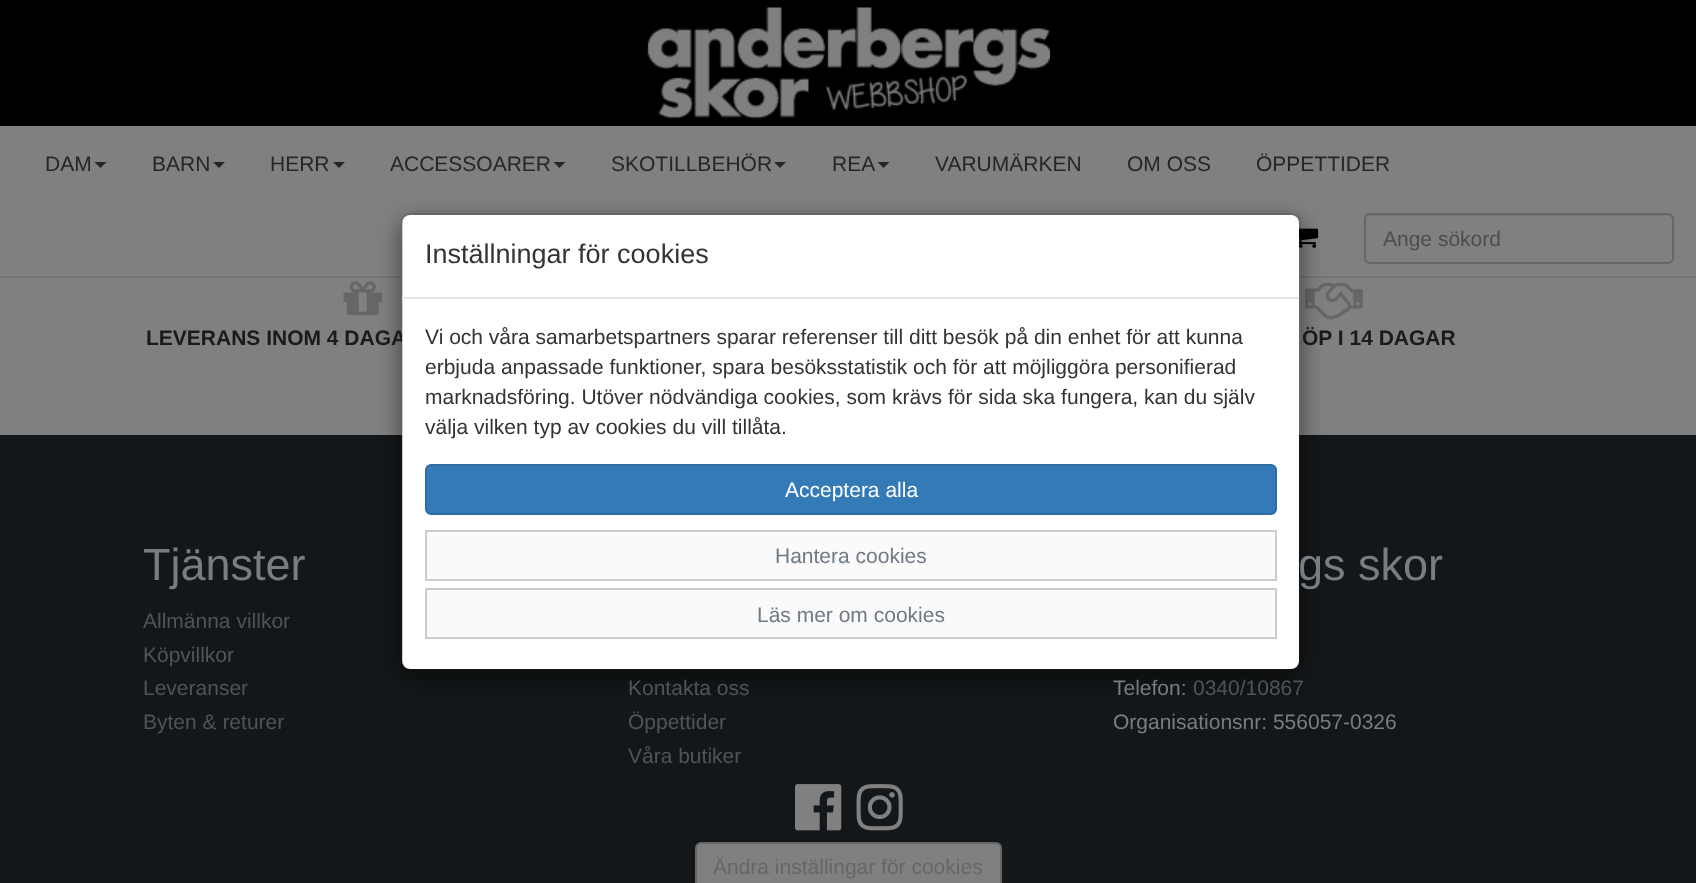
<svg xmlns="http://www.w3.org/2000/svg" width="1696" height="883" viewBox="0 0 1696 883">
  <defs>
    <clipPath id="clip1"><path d="M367 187H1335V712H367ZM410 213H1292C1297 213 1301 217 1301 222V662C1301 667 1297 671 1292 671H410C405 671 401 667 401 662V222C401 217 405 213 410 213Z" clip-rule="evenodd"/></clipPath>
  </defs>
  <rect width="100%" height="100%" fill="rgb(128,128,128)"/>
  <rect x="0" y="276" width="1696" height="2" fill="rgb(116,116,116)"/>
  <rect x="0" y="0" width="1696" height="126" fill="rgb(0,0,0)"/>
  <image x="647" y="7" width="403" height="112" href="pic1.png"/>
  <text x="45" y="171" font-family="Liberation Sans" font-size="21" fill="rgb(38,38,38)">DAM</text>
  <path d="M94.5 162H106.5L100.5 168Z" fill="rgb(38,38,38)"/>
  <text x="152" y="171" font-family="Liberation Sans" font-size="21" fill="rgb(38,38,38)">BARN</text>
  <path d="M213 162H225L219 168Z" fill="rgb(38,38,38)"/>
  <text x="270" y="171" font-family="Liberation Sans" font-size="21" fill="rgb(38,38,38)">HERR</text>
  <path d="M333 162H345L339 168Z" fill="rgb(38,38,38)"/>
  <text x="390" y="171" font-family="Liberation Sans" font-size="21" fill="rgb(38,38,38)">ACCESSOARER</text>
  <path d="M553.5 162H565.5L559.5 168Z" fill="rgb(38,38,38)"/>
  <text x="611" y="171" font-family="Liberation Sans" font-size="21" fill="rgb(38,38,38)">SKOTILLBEHÖR</text>
  <path d="M774 162H786L780 168Z" fill="rgb(38,38,38)"/>
  <text x="832" y="171" font-family="Liberation Sans" font-size="21" fill="rgb(38,38,38)">REA</text>
  <path d="M877.5 162H889.5L883.5 168Z" fill="rgb(38,38,38)"/>
  <g font-family="Liberation Sans" font-size="21" fill="rgb(38,38,38)">
    <text x="935" y="171">VARUMÄRKEN</text>
    <text x="1127" y="171">OM OSS</text>
    <text x="1256" y="171">ÖPPETTIDER</text>
  </g>
  <image x="1299" y="228" width="20" height="20" href="pic2.png"/>
  <path d="M1370 216H1668C1670 216 1672 218 1672 220V261C1673 260 1673 259 1673 258V220C1673 217 1671 215 1668 215H1370C1367 215 1365 217 1365 220C1365 218 1367 216 1370 216Z" fill="rgb(118,118,118)"/>
  <rect x="1365" y="214" width="308" height="49" rx="5" fill="none" stroke="rgb(102,102,102)" stroke-width="2"/>
  <text x="1383" y="246" font-family="Liberation Sans" font-size="21" fill="rgb(77,77,77)">Ange sökord</text>
  <image x="343" y="281" width="39" height="34" href="pic3.png"/>
  <image x="1305" y="282" width="58" height="38" href="pic4.png"/>
  <rect x="0" y="435" width="1696" height="448" fill="rgb(20,23,25)"/>
  <g clip-path="url(#clip1)">
    <rect x="401" y="221" width="900" height="457" rx="9" fill="rgba(0,0,0,0.5)" filter="blur(11px)"/>
  </g>
  <text x="146" y="345" font-family="Liberation Sans" font-size="21" font-weight="bold" fill="rgb(26,26,26)">LEVERANS INOM 4 DAGA</text>
  <rect x="402" y="215" width="897" height="454" rx="8" fill="rgb(255,255,255)"/>
  <text x="1298" y="580" font-family="Liberation Sans" font-size="45" fill="rgb(120,125,128)">gs skor</text>
  <rect x="402" y="214" width="898" height="456" rx="8" fill="none" stroke="rgba(0,0,0,0.2)" stroke-width="2"/>
  <rect x="402" y="297" width="897" height="2" fill="rgb(229,229,229)"/>
  <text x="425" y="263" font-family="Liberation Sans" font-size="27" fill="rgb(51,51,51)">Inställningar för cookies</text>
  <g font-family="Liberation Sans" font-size="21" fill="rgb(51,51,51)">
    <text>
      <tspan x="425" y="344">Vi och våra samarbetspartners sparar referenser till ditt besök på din enhet för att kunna</tspan>
      <tspan x="425" y="374">erbjuda anpassade funktioner, spara besöksstatistik och för att möjliggöra personifierad</tspan>
      <tspan x="425" y="404">marknadsföring. Utöver nödvändiga cookies, som krävs för sida ska fungera, kan du själv</tspan>
      <tspan x="425" y="434">välja vilken typ av cookies du vill tillåta.</tspan>
    </text>
  </g>
  <rect x="426" y="465" width="850" height="49" rx="5" fill="rgb(51,122,183)" stroke="rgb(46,109,164)" stroke-width="2"/>
  <text x="785" y="497" font-family="Liberation Sans" font-size="21" fill="rgb(255,255,255)">Acceptera alla</text>
  <rect x="426" y="531" width="850" height="49" fill="rgb(250,250,250)" stroke="rgb(204,204,204)" stroke-width="2"/>
  <text x="775" y="563" font-family="Liberation Sans" font-size="21" fill="rgb(111,122,133)">Hantera cookies</text>
  <rect x="426" y="589" width="850" height="49" fill="rgb(250,250,250)" stroke="rgb(204,204,204)" stroke-width="2"/>
  <text x="757" y="622" font-family="Liberation Sans" font-size="21" fill="rgb(111,122,133)">Läs mer om cookies</text>
  <text x="1302" y="345" font-family="Liberation Sans" font-size="21" font-weight="bold" fill="rgb(26,26,26)">ÖP I 14 DAGAR</text>
  <text x="143" y="580" font-family="Liberation Sans" font-size="45" fill="rgb(120,125,128)">Tjänster</text>
  <g font-family="Liberation Sans" font-size="21" fill="rgb(80,84,87)">
    <text>
      <tspan x="143" y="628">Allmänna villkor</tspan>
      <tspan x="143" y="662">Köpvillkor</tspan>
      <tspan x="143" y="695">Leveranser</tspan>
      <tspan x="143" y="729">Byten &amp; returer</tspan>
    </text>
    <text>
      <tspan x="628" y="695">Kontakta oss</tspan>
      <tspan x="628" y="729">Öppettider</tspan>
      <tspan x="628" y="763">Våra butiker</tspan>
    </text>
  </g>
  <text x="1113" y="695" font-family="Liberation Sans" font-size="21" fill="rgb(120,125,128)">Telefon:</text>
  <text x="1193" y="695" font-family="Liberation Sans" font-size="21" fill="rgb(80,84,87)">0340/10867</text>
  <text x="1113" y="729" font-family="Liberation Sans" font-size="21" fill="rgb(120,125,128)">Organisationsnr: 556057-0326</text>
  <image x="795" y="784" width="47" height="47" href="pic5.png"/>
  <image x="856" y="784" width="47" height="47" href="pic6.png"/>
  <rect x="696" y="843" width="305" height="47" rx="5" fill="rgb(128,128,128)" stroke="rgb(102,102,102)" stroke-width="2"/>
  <text x="713" y="874" font-family="Liberation Sans" font-size="21" fill="rgb(102,102,102)">Ändra inställingar för cookies</text>
</svg>
